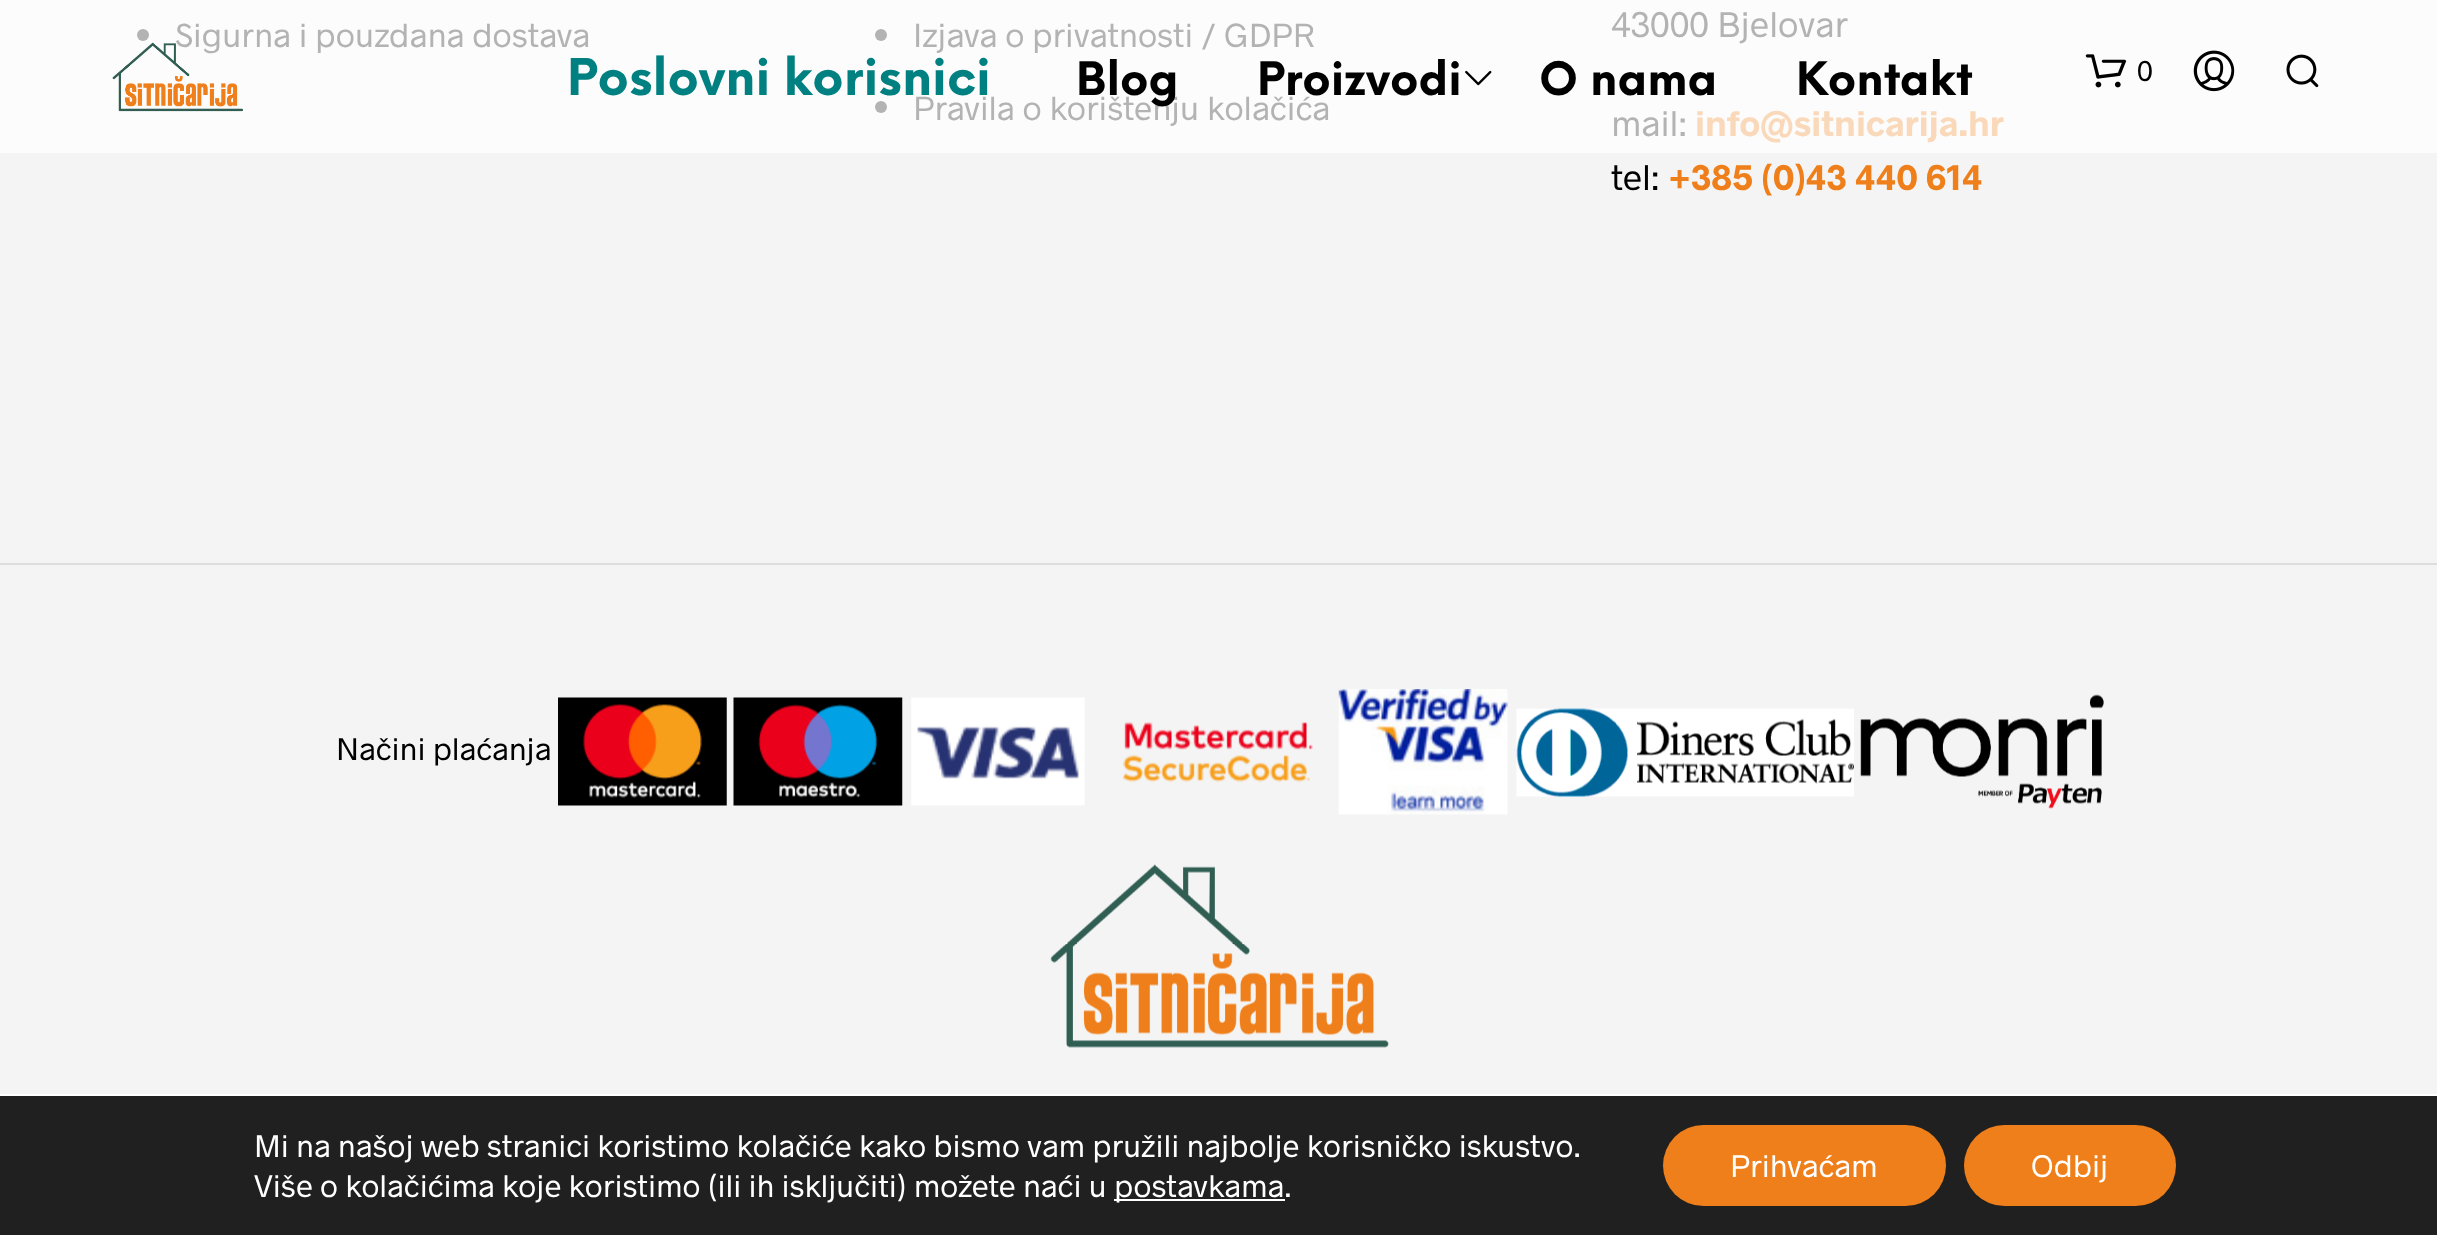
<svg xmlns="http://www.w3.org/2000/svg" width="2437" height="1235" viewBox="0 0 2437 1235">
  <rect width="100%" height="100%" fill="rgb(244,244,244)"/>
  <rect x="0" y="0" width="2437" height="153" fill="rgb(252,252,252)"/>
  <rect x="0" y="563" width="2437" height="2" fill="rgb(221,221,221)"/>
  <circle cx="143" cy="35" r="6" fill="rgb(179,179,179)"/>
  <text x="175" y="47" font-family="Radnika" font-size="33.75" fill="rgb(179,179,179)">Sigurna i pouzdana dostava</text>
  <circle cx="881" cy="35" r="6" fill="rgb(179,179,179)"/>
  <text x="913" y="47" font-family="Radnika" font-size="33.75" fill="rgb(179,179,179)">Izjava o privatnosti / GDPR</text>
  <circle cx="881" cy="107" r="6" fill="rgb(179,179,179)"/>
  <text x="913" y="120" font-family="Radnika" font-size="33.75" fill="rgb(179,179,179)">Pravila o korištenju kolačića</text>
  <g font-family="Radnika" font-size="36" fill="rgb(179,179,179)">
    <text x="1611" y="37">43000 Bjelovar</text>
    <text x="1611" y="136">mail:</text>
  </g>
  <text x="1695" y="136" font-family="Radnika" font-size="36" font-weight="bold" fill="rgb(250,217,186)">info@sitnicarija.hr</text>
  <text x="1611" y="190" font-family="Radnika" font-size="36" fill="rgb(0,0,0)">tel:</text>
  <text x="1668" y="190" font-family="Radnika" font-size="36" font-weight="bold" fill="rgb(239,127,26)">+385 (0)43 440 614</text>
  <text x="336" y="760" font-family="Radnika" font-size="31.5" fill="rgb(0,0,0)">Načini plaćanja</text>
  <image x="558" y="697" width="169" height="109" href="pic1.png"/>
  <image x="733" y="697" width="170" height="109" href="pic2.png"/>
  <image x="911" y="697" width="174" height="109" href="pic3.png"/>
  <image x="1123" y="722" width="190" height="61" href="pic4.png"/>
  <image x="1338" y="689" width="170" height="126" href="pic5.png"/>
  <image x="1516" y="708" width="338" height="89" href="pic6.png"/>
  <image x="1860" y="694" width="244" height="115" href="pic7.png"/>
  <image x="1050" y="864" width="339" height="184" href="pic8.png"/>
  <image x="112" y="42" width="131" height="70" href="pic9.png"/>
  <text x="567" y="95" font-family="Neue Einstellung" font-size="49.5" font-weight="bold" fill="rgb(0,128,128)">Poslovni korisnici</text>
  <g font-family="Neue Einstellung" font-size="45" font-weight="bold" fill="rgb(0,0,0)">
    <text x="1076" y="95">Blog</text>
    <text x="1257" y="95">Proizvodi</text>
  </g>
  <image x="1465" y="70" width="27" height="16" href="pic10.png"/>
  <g font-family="Neue Einstellung" font-size="45" font-weight="bold" fill="rgb(0,0,0)">
    <text x="1539" y="95">O nama</text>
    <text x="1796" y="95">Kontakt</text>
  </g>
  <image x="2085" y="54" width="42" height="34" href="pic11.png"/>
  <text x="2137" y="81" font-family="Radnika" font-size="29" fill="rgb(0,0,0)">0</text>
  <image x="2193" y="50" width="42" height="42" href="pic12.png"/>
  <image x="2286" y="54" width="33" height="34" href="pic13.png"/>
  <rect x="0" y="1096" width="2437" height="139" fill="rgb(32,32,32)"/>
  <rect x="0" y="1094" width="2437" height="2" fill="rgb(255,255,255)"/>
  <g font-family="Radnika" font-size="31.5" fill="rgb(255,255,255)">
    <text>
      <tspan x="254" y="1157">Mi na našoj web stranici koristimo kolačiće kako bismo vam pružili najbolje korisničko iskustvo.</tspan>
      <tspan x="254" y="1197">Više o kolačićima koje koristimo (ili ih isključiti) možete naći u</tspan>
    </text>
  </g>
  <rect x="1114" y="1199" width="171" height="2" fill="rgb(255,255,255)"/>
  <text x="1114" y="1197" font-family="Radnika" font-size="31.5" fill="rgb(255,255,255)">postavkama.</text>
  <rect x="1663" y="1125" width="283" height="81" rx="40.5" fill="rgb(239,127,26)"/>
  <text x="1730" y="1177" font-family="Radnika" font-size="31.5" fill="rgb(255,255,255)">Prihvaćam</text>
  <rect x="1964" y="1125" width="212" height="81" rx="40.5" fill="rgb(239,127,26)"/>
  <text x="2031" y="1177" font-family="Radnika" font-size="31.5" fill="rgb(255,255,255)">Odbij</text>
</svg>
